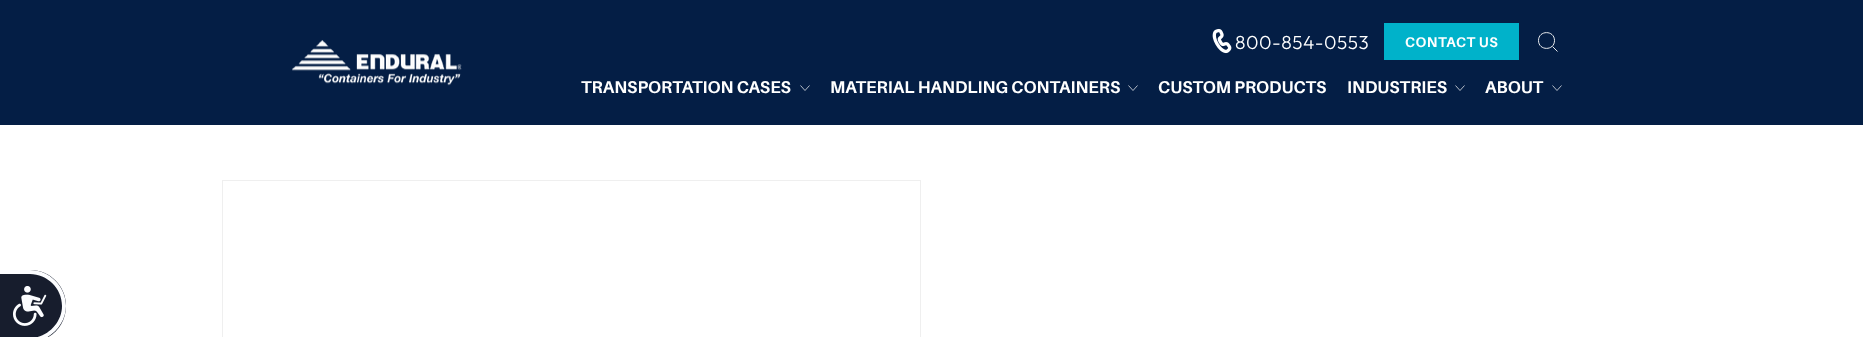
<svg xmlns="http://www.w3.org/2000/svg" width="1863" height="337" viewBox="0 0 1863 337">
  <rect width="100%" height="100%" fill="rgb(255,255,255)"/>
  <rect x="0" y="0" width="1863" height="125" fill="rgba(0,0,0,0.2)" filter="blur(0.5px)"/>
  <rect x="0" y="0" width="1863" height="125" fill="rgb(4,30,69)"/>
  <image x="292" y="40" width="170" height="46" href="pic1.png"/>
  <image x="1212" y="28" width="20" height="26" href="pic2.png"/>
  <text x="1235" y="49" font-family="Outfit" font-size="19" font-weight="300" letter-spacing="0.5" fill="rgb(255,255,255)">800-854-0553</text>
  <rect x="1384" y="23" width="135" height="37" fill="rgb(0,178,202)"/>
  <text x="1405" y="47" font-family="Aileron" font-size="14" font-weight="bold" letter-spacing="0.5" fill="rgb(255,255,255)">CONTACT US</text>
  <path d="M1554.5 40.5C1554.5 51 1538.5 51 1538.5 40.5C1538.5 30 1554.5 30 1554.5 40.5ZM1557.5 51.5L1552.5 46.5" fill="none" stroke="rgb(255,255,255)" stroke-width="0.9"/>
  <text x="581" y="93" font-family="Aileron" font-size="17" font-weight="bold" fill="rgb(255,255,255)">TRANSPORTATION CASES</text>
  <path d="M800.5 85.5L805 90.5L809.5 85.5" fill="none" stroke="rgb(255,255,255)" stroke-width="0.7"/>
  <text x="830" y="93" font-family="Aileron" font-size="17" font-weight="bold" fill="rgb(255,255,255)">MATERIAL HANDLING CONTAINERS</text>
  <path d="M1128.5 85.5L1133 90.5L1137.5 85.5" fill="none" stroke="rgb(255,255,255)" stroke-width="0.7"/>
  <g font-family="Aileron" font-size="17" font-weight="bold" fill="rgb(255,255,255)">
    <text x="1158" y="93">CUSTOM PRODUCTS</text>
    <text x="1347" y="93">INDUSTRIES</text>
  </g>
  <path d="M1455.5 85.5L1460 90.5L1464.5 85.5" fill="none" stroke="rgb(255,255,255)" stroke-width="0.7"/>
  <text x="1485" y="93" font-family="Aileron" font-size="17" font-weight="bold" fill="rgb(255,255,255)">ABOUT</text>
  <path d="M1552.5 85.5L1557 90.5L1561.5 85.5" fill="none" stroke="rgb(255,255,255)" stroke-width="0.7"/>
  <rect x="222.5" y="180.5" width="698" height="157" fill="none" stroke="rgb(239,239,239)"/>
  <path d="M0 270H30C50 270 66 286 66 306C66 326 50 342 30 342H0Z" fill="rgb(23,29,45)"/>
  <path d="M0 270H30C49 270 66 286 66 306C66 325 49 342 30 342H0ZM0 274H30C47 274 62 288 62 306C62 323 47 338 30 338H0Z" fill="rgb(252,253,255)" fill-rule="evenodd"/>
  <image x="13" y="286" width="34" height="40" href="pic3.png"/>
</svg>
